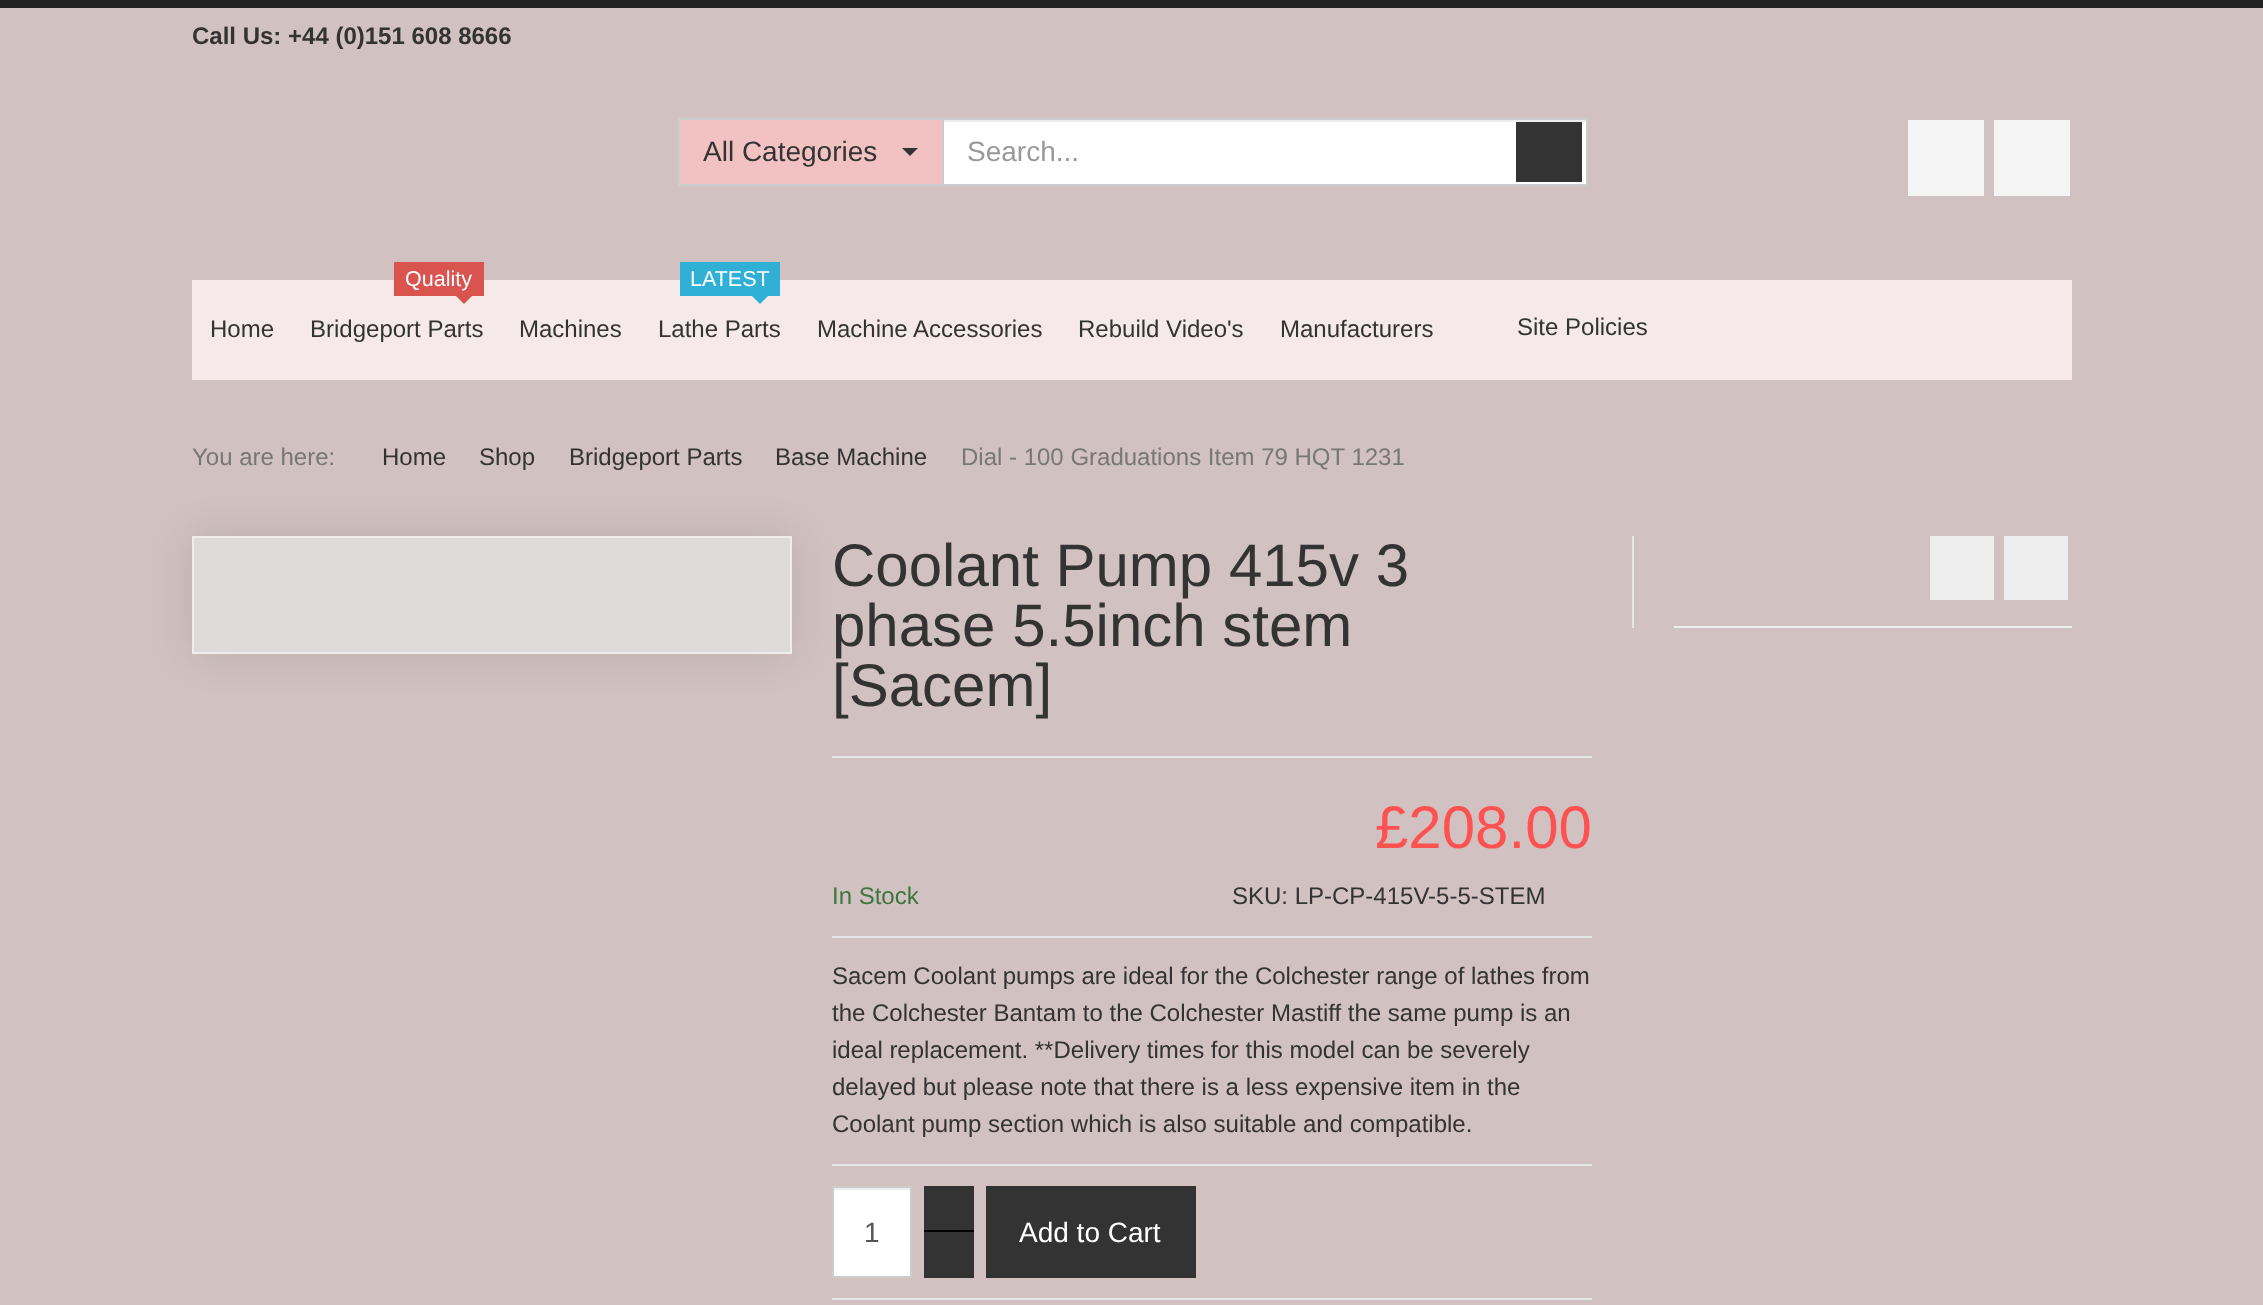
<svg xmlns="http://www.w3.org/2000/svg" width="2263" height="1305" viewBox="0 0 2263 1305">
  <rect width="100%" height="100%" fill="rgb(209,193,193)"/>
  <rect x="0" y="0" width="2263" height="8" fill="rgb(34,34,34)"/>
  <text x="192" y="44" font-family="Liberation Sans" font-size="24" font-weight="bold" fill="rgb(51,51,51)">Call Us: +44 (0)151 608 8666</text>
  <rect x="680" y="120" width="262" height="64" fill="rgb(242,194,194)"/>
  <rect x="678" y="118" width="264" height="2" fill="rgb(204,204,204)"/>
  <rect x="678" y="184" width="264" height="2" fill="rgb(204,204,204)"/>
  <rect x="678" y="118" width="2" height="68" fill="rgb(204,204,204)"/>
  <text x="703" y="161" font-family="Liberation Sans" font-size="28" fill="rgb(51,51,51)">All Categories</text>
  <path d="M902 148H918L910 156Z" fill="rgb(51,51,51)"/>
  <rect x="944" y="122" width="642" height="62" fill="rgb(255,255,255)"/>
  <rect x="944" y="120" width="642" height="2" fill="rgb(236,236,236)"/>
  <rect x="943" y="119" width="644" height="66" fill="none" stroke="rgb(204,204,204)" stroke-width="2"/>
  <text x="967" y="161" font-family="Liberation Sans" font-size="28" fill="rgb(153,153,153)">Search...</text>
  <rect x="1516" y="122" width="66" height="60" fill="rgb(51,51,51)"/>
  <rect x="1908" y="120" width="76" height="76" fill="rgb(245,245,245)"/>
  <rect x="1994" y="120" width="76" height="76" fill="rgb(245,245,245)"/>
  <rect x="192" y="280" width="1880" height="100" fill="rgb(245,233,233)"/>
  <text x="210" y="337" font-family="Liberation Sans" font-size="24" fill="rgb(51,51,51)">Home</text>
  <rect x="394" y="262" width="90" height="34" fill="rgb(217,83,79)"/>
  <text x="405" y="286" font-family="Liberation Sans" font-size="21.5" fill="rgb(255,255,255)">Quality</text>
  <path d="M456 296H472L464 304Z" fill="rgb(217,83,79)"/>
  <g font-family="Liberation Sans" font-size="24" fill="rgb(51,51,51)">
    <text x="310" y="337">Bridgeport Parts</text>
    <text x="519" y="337">Machines</text>
  </g>
  <rect x="680" y="262" width="100" height="34" fill="rgb(49,176,213)"/>
  <text x="690" y="286" font-family="Liberation Sans" font-size="21.5" fill="rgb(255,255,255)">LATEST</text>
  <path d="M752 296H768L760 304Z" fill="rgb(49,176,213)"/>
  <g font-family="Liberation Sans" font-size="24" fill="rgb(51,51,51)">
    <text x="658" y="337">Lathe Parts</text>
    <text x="817" y="337">Machine Accessories</text>
    <text x="1078" y="337">Rebuild Video's</text>
    <text x="1280" y="337">Manufacturers</text>
    <text x="1517" y="335">Site Policies</text>
  </g>
  <text x="192" y="465" font-family="Liberation Sans" font-size="24" fill="rgb(119,119,119)">You are here:</text>
  <g font-family="Liberation Sans" font-size="24" fill="rgb(51,51,51)">
    <text x="382" y="465">Home</text>
    <text x="479" y="465">Shop</text>
    <text x="569" y="465">Bridgeport Parts</text>
    <text x="775" y="465">Base Machine</text>
  </g>
  <text x="961" y="465" font-family="Liberation Sans" font-size="24" fill="rgb(119,119,119)">Dial - 100 Graduations Item 79 HQT 1231</text>
  <rect x="192" y="536" width="600" height="118" fill="rgba(0,0,0,0.1)" filter="blur(20px)"/>
  <rect x="193" y="537" width="598" height="116" fill="rgb(222,218,218)" stroke="rgb(238,238,238)" stroke-width="2"/>
  <g font-family="Liberation Sans" font-size="60" fill="rgb(51,51,51)">
    <text>
      <tspan x="832" y="586">Coolant Pump 415v 3</tspan>
      <tspan x="832" y="646">phase 5.5inch stem</tspan>
      <tspan x="832" y="706">[Sacem]</tspan>
    </text>
  </g>
  <rect x="832" y="756" width="760" height="2" fill="rgb(230,230,230)"/>
  <rect x="832" y="936" width="760" height="2" fill="rgb(230,230,230)"/>
  <text x="1375" y="848" font-family="Liberation Sans" font-size="60" fill="rgb(254,82,82)">£208.00</text>
  <text x="832" y="904" font-family="Liberation Sans" font-size="24" fill="rgb(60,118,61)">In Stock</text>
  <text x="1232" y="904" font-family="Liberation Sans" font-size="24" fill="rgb(51,51,51)">SKU: LP-CP-415V-5-5-STEM</text>
  <rect x="832" y="1164" width="760" height="2" fill="rgb(230,230,230)"/>
  <g font-family="Liberation Sans" font-size="24" fill="rgb(51,51,51)">
    <text>
      <tspan x="832" y="984">Sacem Coolant pumps are ideal for the Colchester range of lathes from</tspan>
      <tspan x="832" y="1021">the Colchester Bantam to the Colchester Mastiff the same pump is an</tspan>
      <tspan x="832" y="1058">ideal replacement. **Delivery times for this model can be severely</tspan>
      <tspan x="832" y="1095">delayed but please note that there is a less expensive item in the</tspan>
      <tspan x="832" y="1132">Coolant pump section which is also suitable and compatible.</tspan>
    </text>
  </g>
  <rect x="832" y="1298" width="760" height="2" fill="rgb(230,230,230)"/>
  <rect x="834" y="1190" width="76" height="86" fill="rgb(255,255,255)"/>
  <rect x="834" y="1188" width="76" height="2" fill="rgb(236,236,236)"/>
  <rect x="833" y="1187" width="78" height="90" fill="none" stroke="rgb(204,204,204)" stroke-width="2"/>
  <text x="864" y="1242" font-family="Liberation Sans" font-size="28" fill="rgb(85,85,85)">1</text>
  <rect x="924" y="1186" width="50" height="44" fill="rgb(51,51,51)"/>
  <rect x="924" y="1230" width="50" height="2" fill="rgb(0,0,0)"/>
  <rect x="924" y="1232" width="50" height="46" fill="rgb(51,51,51)"/>
  <rect x="986" y="1186" width="210" height="92" fill="rgb(51,51,51)"/>
  <text x="1019" y="1242" font-family="Liberation Sans" font-size="28" fill="rgb(255,255,255)">Add to Cart</text>
  <rect x="1632" y="536" width="2" height="92" fill="rgb(230,230,230)"/>
  <rect x="1930" y="536" width="64" height="64" fill="rgb(238,238,238)"/>
  <rect x="2004" y="536" width="64" height="64" fill="rgb(238,238,238)"/>
  <rect x="1674" y="626" width="398" height="2" fill="rgb(238,238,238)"/>
</svg>
